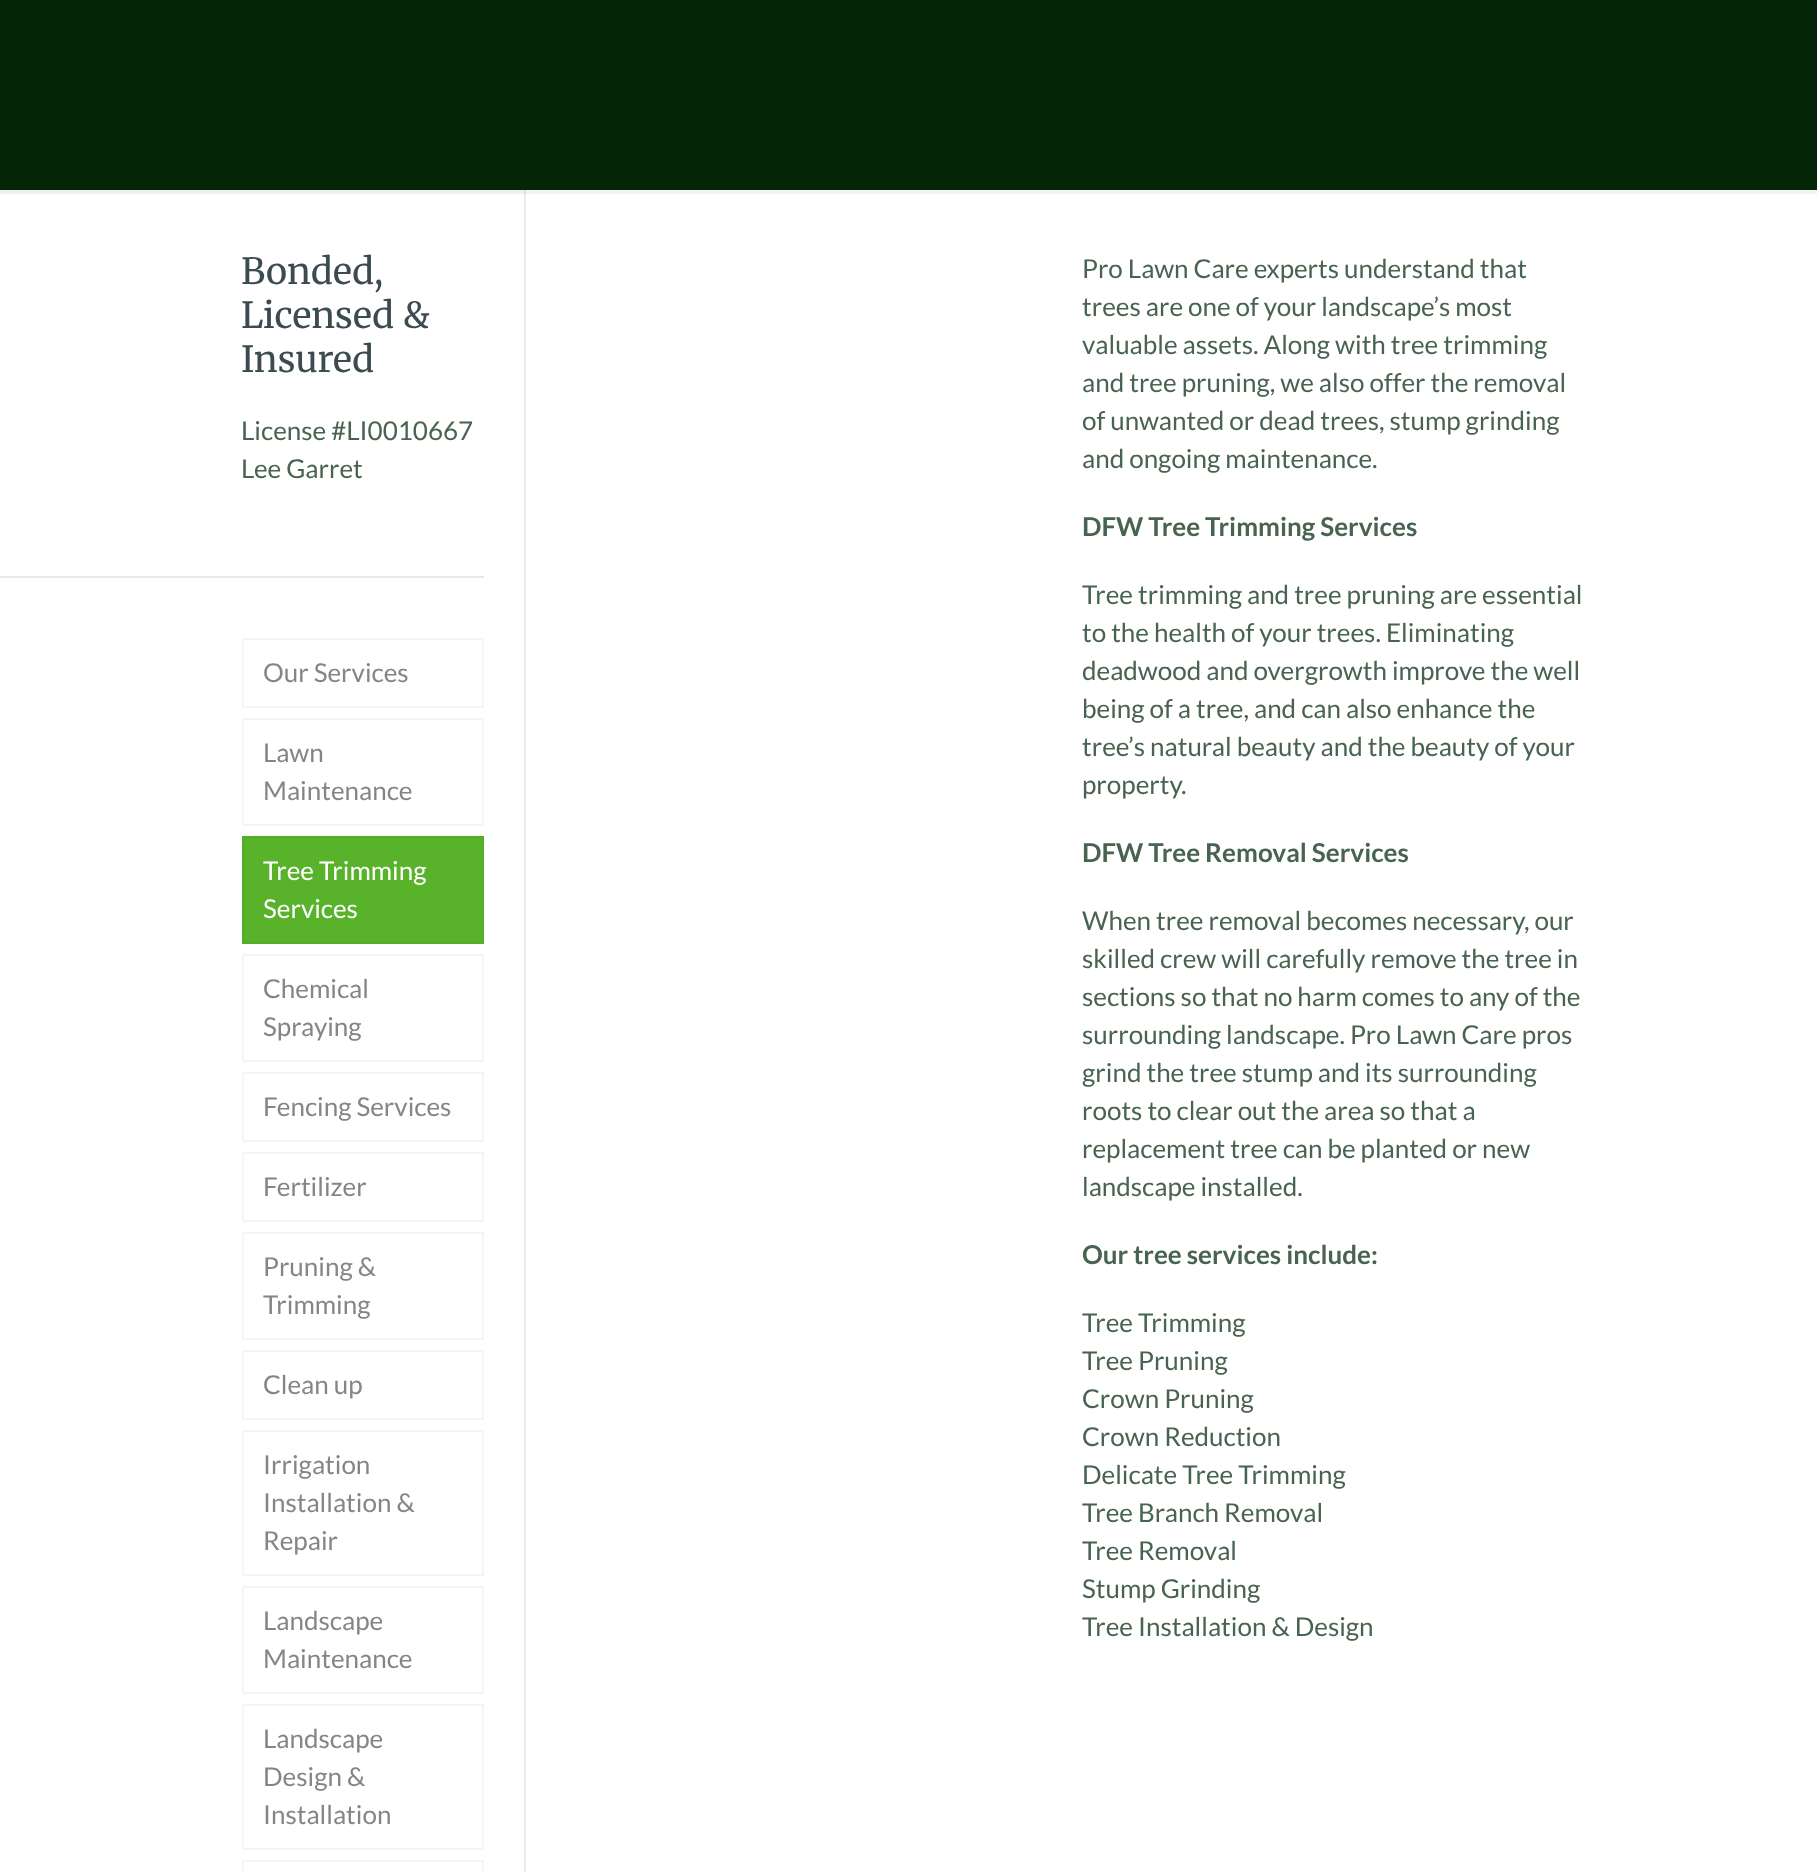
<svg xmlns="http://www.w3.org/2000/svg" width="1817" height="1872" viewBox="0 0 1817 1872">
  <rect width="100%" height="100%" fill="rgb(255,255,255)"/>
  <rect x="526" y="190" width="1291" height="4" fill="rgb(242,242,242)"/>
  <rect x="0" y="0" width="1817" height="190" fill="rgb(5,38,6)"/>
  <rect x="524" y="190" width="2" height="1682" fill="rgb(235,235,235)"/>
  <rect x="524" y="190" width="2" height="4" fill="rgb(223,223,223)"/>
  <rect x="0" y="190" width="524" height="4" fill="rgb(240,240,240)"/>
  <g font-family="Merriweather" font-size="36" fill="rgb(59,75,80)">
    <text>
      <tspan x="241" y="284">Bonded,</tspan>
      <tspan x="241" y="328">Licensed &amp;</tspan>
      <tspan x="241" y="372">Insured</tspan>
    </text>
  </g>
  <g font-family="Lato" font-size="26" fill="rgb(72,99,80)">
    <text>
      <tspan x="241" y="440">License #LI0010667</tspan>
      <tspan x="241" y="478">Lee Garret</tspan>
    </text>
  </g>
  <rect x="0" y="576" width="484" height="2" fill="rgb(233,233,233)"/>
  <rect x="243" y="639" width="240" height="68" fill="none" stroke="rgb(245,245,245)" stroke-width="2"/>
  <text x="263" y="682" font-family="Lato" font-size="26" fill="rgb(133,133,133)">Our Services</text>
  <rect x="243" y="719" width="240" height="106" fill="none" stroke="rgb(245,245,245)" stroke-width="2"/>
  <g font-family="Lato" font-size="26" fill="rgb(133,133,133)">
    <text>
      <tspan x="263" y="762">Lawn</tspan>
      <tspan x="263" y="800">Maintenance</tspan>
    </text>
  </g>
  <rect x="243" y="837" width="240" height="106" fill="rgb(88,179,43)" stroke="rgb(84,172,41)" stroke-width="2"/>
  <g font-family="Lato" font-size="26" fill="rgb(255,255,255)">
    <text>
      <tspan x="263" y="880">Tree Trimming</tspan>
      <tspan x="263" y="918">Services</tspan>
    </text>
  </g>
  <rect x="243" y="955" width="240" height="106" fill="none" stroke="rgb(245,245,245)" stroke-width="2"/>
  <g font-family="Lato" font-size="26" fill="rgb(133,133,133)">
    <text>
      <tspan x="263" y="998">Chemical</tspan>
      <tspan x="263" y="1036">Spraying</tspan>
    </text>
  </g>
  <rect x="243" y="1073" width="240" height="68" fill="none" stroke="rgb(245,245,245)" stroke-width="2"/>
  <text x="263" y="1116" font-family="Lato" font-size="26" fill="rgb(133,133,133)">Fencing Services</text>
  <rect x="243" y="1153" width="240" height="68" fill="none" stroke="rgb(245,245,245)" stroke-width="2"/>
  <text x="263" y="1196" font-family="Lato" font-size="26" fill="rgb(133,133,133)">Fertilizer</text>
  <rect x="243" y="1233" width="240" height="106" fill="none" stroke="rgb(245,245,245)" stroke-width="2"/>
  <g font-family="Lato" font-size="26" fill="rgb(133,133,133)">
    <text>
      <tspan x="263" y="1276">Pruning &amp;</tspan>
      <tspan x="263" y="1314">Trimming</tspan>
    </text>
  </g>
  <rect x="243" y="1351" width="240" height="68" fill="none" stroke="rgb(245,245,245)" stroke-width="2"/>
  <text x="263" y="1394" font-family="Lato" font-size="26" fill="rgb(133,133,133)">Clean up</text>
  <rect x="243" y="1431" width="240" height="144" fill="none" stroke="rgb(245,245,245)" stroke-width="2"/>
  <g font-family="Lato" font-size="26" fill="rgb(133,133,133)">
    <text>
      <tspan x="263" y="1474">Irrigation</tspan>
      <tspan x="263" y="1512">Installation &amp;</tspan>
      <tspan x="263" y="1550">Repair</tspan>
    </text>
  </g>
  <rect x="243" y="1587" width="240" height="106" fill="none" stroke="rgb(245,245,245)" stroke-width="2"/>
  <g font-family="Lato" font-size="26" fill="rgb(133,133,133)">
    <text>
      <tspan x="263" y="1630">Landscape</tspan>
      <tspan x="263" y="1668">Maintenance</tspan>
    </text>
  </g>
  <rect x="243" y="1705" width="240" height="144" fill="none" stroke="rgb(245,245,245)" stroke-width="2"/>
  <g font-family="Lato" font-size="26" fill="rgb(133,133,133)">
    <text>
      <tspan x="263" y="1748">Landscape</tspan>
      <tspan x="263" y="1786">Design &amp;</tspan>
      <tspan x="263" y="1824">Installation</tspan>
    </text>
  </g>
  <rect x="243" y="1861" width="240" height="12" fill="none" stroke="rgb(245,245,245)" stroke-width="2"/>
  <g font-family="Lato" font-size="26" fill="rgb(72,99,80)">
    <text>
      <tspan x="1082" y="278">Pro Lawn Care experts understand that</tspan>
      <tspan x="1082" y="316">trees are one of your landscape’s most</tspan>
      <tspan x="1082" y="354">valuable assets. Along with tree trimming</tspan>
      <tspan x="1082" y="392">and tree pruning, we also offer the removal</tspan>
      <tspan x="1082" y="430">of unwanted or dead trees, stump grinding</tspan>
      <tspan x="1082" y="468">and ongoing maintenance.</tspan>
    </text>
  </g>
  <text x="1082" y="536" font-family="Lato" font-size="26" font-weight="bold" fill="rgb(72,99,80)">DFW Tree Trimming Services</text>
  <g font-family="Lato" font-size="26" fill="rgb(72,99,80)">
    <text>
      <tspan x="1082" y="604">Tree trimming and tree pruning are essential</tspan>
      <tspan x="1082" y="642">to the health of your trees. Eliminating</tspan>
      <tspan x="1082" y="680">deadwood and overgrowth improve the well</tspan>
      <tspan x="1082" y="718">being of a tree, and can also enhance the</tspan>
      <tspan x="1082" y="756">tree’s natural beauty and the beauty of your</tspan>
      <tspan x="1082" y="794">property.</tspan>
    </text>
  </g>
  <text x="1082" y="862" font-family="Lato" font-size="26" font-weight="bold" fill="rgb(72,99,80)">DFW Tree Removal Services</text>
  <g font-family="Lato" font-size="26" fill="rgb(72,99,80)">
    <text>
      <tspan x="1082" y="930">When tree removal becomes necessary, our</tspan>
      <tspan x="1082" y="968">skilled crew will carefully remove the tree in</tspan>
      <tspan x="1082" y="1006">sections so that no harm comes to any of the</tspan>
      <tspan x="1082" y="1044">surrounding landscape. Pro Lawn Care pros</tspan>
      <tspan x="1082" y="1082">grind the tree stump and its surrounding</tspan>
      <tspan x="1082" y="1120">roots to clear out the area so that a</tspan>
      <tspan x="1082" y="1158">replacement tree can be planted or new</tspan>
      <tspan x="1082" y="1196">landscape installed.</tspan>
    </text>
  </g>
  <text x="1082" y="1264" font-family="Lato" font-size="26" font-weight="bold" fill="rgb(72,99,80)">Our tree services include:</text>
  <g font-family="Lato" font-size="26" fill="rgb(72,99,80)">
    <text>
      <tspan x="1082" y="1332">Tree Trimming</tspan>
      <tspan x="1082" y="1370">Tree Pruning</tspan>
      <tspan x="1082" y="1408">Crown Pruning</tspan>
      <tspan x="1082" y="1446">Crown Reduction</tspan>
      <tspan x="1082" y="1484">Delicate Tree Trimming</tspan>
      <tspan x="1082" y="1522">Tree Branch Removal</tspan>
      <tspan x="1082" y="1560">Tree Removal</tspan>
      <tspan x="1082" y="1598">Stump Grinding</tspan>
      <tspan x="1082" y="1636">Tree Installation &amp; Design</tspan>
    </text>
  </g>
</svg>
